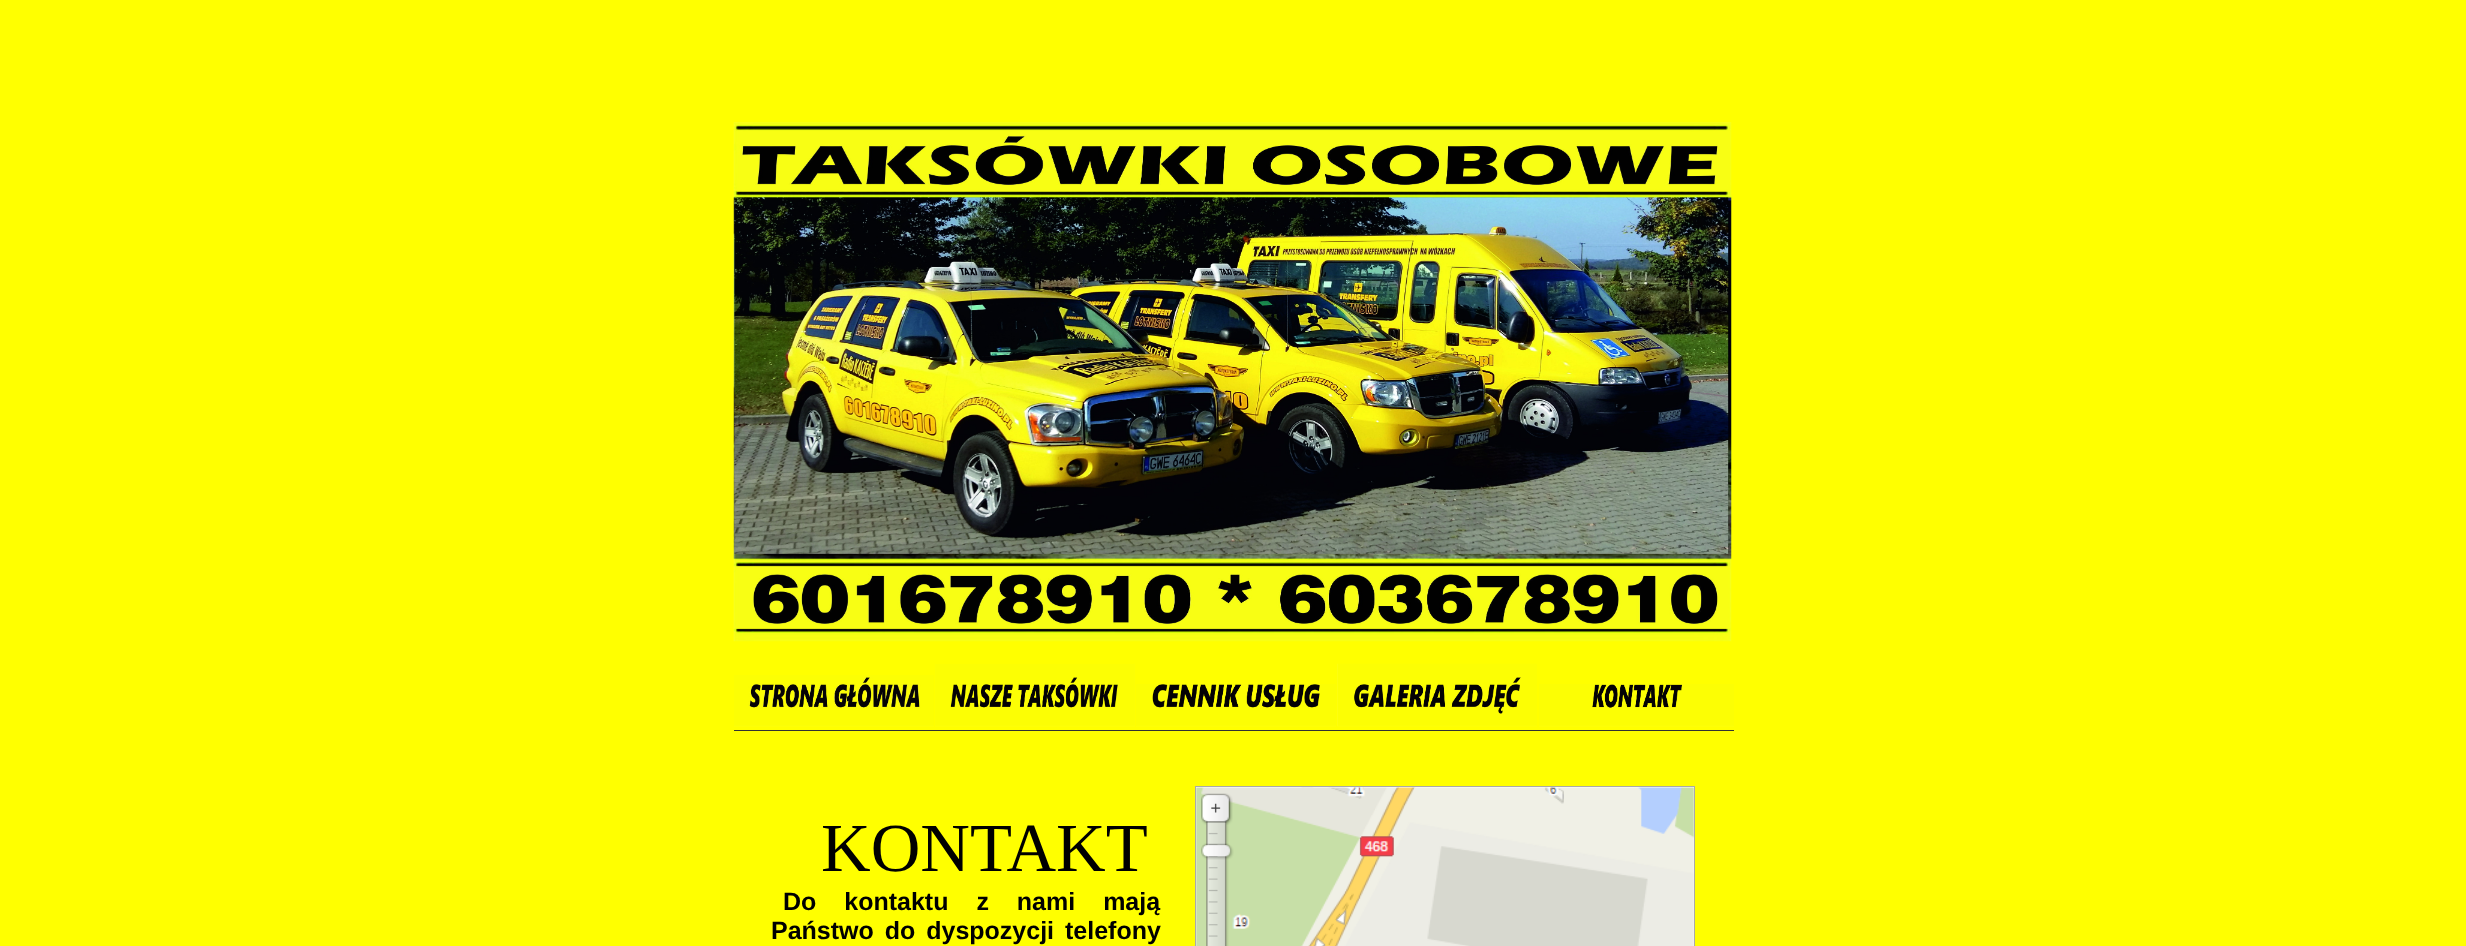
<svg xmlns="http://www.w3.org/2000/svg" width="2466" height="946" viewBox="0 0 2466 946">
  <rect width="100%" height="100%" fill="rgb(255,255,0)"/>
  <image x="733" y="122" width="999" height="520" href="pic1.png"/>
  <image x="734" y="675" width="200" height="52" href="pic2.png"/>
  <image x="935" y="664" width="200" height="63" href="pic3.png"/>
  <image x="1136" y="684" width="200" height="43" href="pic4.png"/>
  <image x="1337" y="663" width="200" height="64" href="pic5.png"/>
  <image x="1539" y="684" width="195" height="43" href="pic6.png"/>
  <rect x="734" y="730" width="1000" height="1" fill="rgb(51,51,51)"/>
  <text x="821" y="871" font-family="Liberation Serif" font-size="68.75" fill="rgb(0,0,0)">KONTAKT</text>
  <g font-family="Liberation Sans" font-size="25" font-weight="bold" fill="rgb(0,0,0)">
    <text x="783" y="910" word-spacing="21">Do kontaktu z nami mają</text>
    <text x="771" y="939" word-spacing="4">Państwo do dyspozycji telefony</text>
  </g>
  <rect x="1195.5" y="786.5" width="499" height="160" fill="rgb(255,255,255)" stroke="rgb(170,170,170)"/>
  <image x="1196" y="787" width="179" height="159" href="pic7.png"/>
  <image x="1375" y="787" width="319" height="159" href="pic8.png"/>
  <image x="1201" y="793" width="32" height="32" href="pic9.png"/>
  <image x="1206" y="825" width="23" height="121" href="pic10.png"/>
  <image x="1201" y="843" width="33" height="17" href="pic11.png"/>
</svg>
